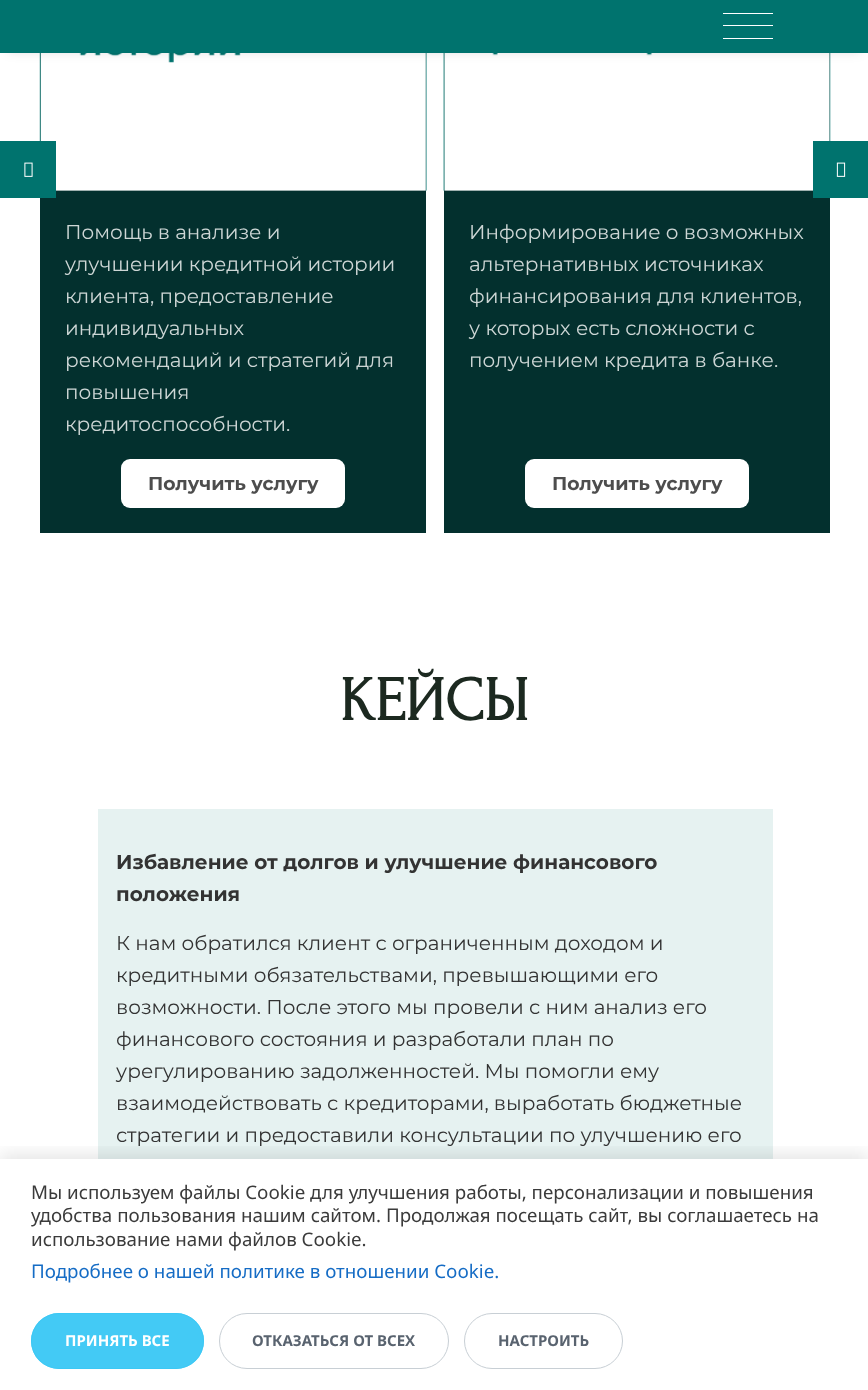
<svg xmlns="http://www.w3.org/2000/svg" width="868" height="1390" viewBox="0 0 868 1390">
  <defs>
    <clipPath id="clip1"><rect x="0" y="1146" width="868" height="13"/></clipPath>
  </defs>
  <rect width="100%" height="100%" fill="rgb(255,255,255)"/>
  <rect x="40" y="53" width="386" height="480" fill="rgb(3,48,46)"/>
  <image x="39" y="53" width="388" height="138" href="pic3.png"/>
  <rect x="444" y="53" width="386" height="480" fill="rgb(3,48,46)"/>
  <image x="443" y="53" width="388" height="138" href="pic4.png"/>
  <rect x="8" y="14" width="853" height="37" fill="rgba(0,0,0,0.15)" filter="blur(6px)"/>
  <rect x="0" y="0" width="868" height="53" fill="rgb(0,115,110)"/>
  <rect x="723" y="13" width="50" height="1" fill="rgb(255,255,255)"/>
  <rect x="723" y="25" width="50" height="1" fill="rgb(255,255,255)"/>
  <rect x="723" y="38" width="50" height="1" fill="rgb(255,255,255)"/>
  <rect x="0" y="141" width="56" height="57" fill="rgb(0,115,110)"/>
  <image x="24" y="162" width="9" height="15" href="pic1.png"/>
  <rect x="813" y="141" width="55" height="57" fill="rgb(0,115,110)"/>
  <image x="836" y="162" width="10" height="15" href="pic2.png"/>
  <g font-family="Montserrat" font-size="20" fill="rgb(205,214,213)">
    <text>
      <tspan x="65" y="239">Помощь в анализе и</tspan>
      <tspan x="65" y="271">улучшении кредитной истории</tspan>
      <tspan x="65" y="303">клиента, предоставление</tspan>
      <tspan x="65" y="335">индивидуальных</tspan>
      <tspan x="65" y="367">рекомендаций и стратегий для</tspan>
      <tspan x="65" y="399">повышения</tspan>
      <tspan x="65" y="431">кредитоспособности.</tspan>
    </text>
  </g>
  <rect x="121" y="459" width="224" height="49" rx="9" fill="rgb(255,255,255)"/>
  <text x="148" y="490" font-family="Montserrat" font-size="18.75" font-weight="bold" fill="rgb(77,77,77)">Получить услугу</text>
  <g font-family="Montserrat" font-size="20" fill="rgb(205,214,213)">
    <text>
      <tspan x="469" y="239">Информирование о возможных</tspan>
      <tspan x="469" y="271">альтернативных источниках</tspan>
      <tspan x="469" y="303">финансирования для клиентов,</tspan>
      <tspan x="469" y="335">у которых есть сложности с</tspan>
      <tspan x="469" y="367">получением кредита в банке.</tspan>
    </text>
  </g>
  <rect x="525" y="459" width="224" height="49" rx="9" fill="rgb(255,255,255)"/>
  <text x="552" y="490" font-family="Montserrat" font-size="18.75" font-weight="bold" fill="rgb(77,77,77)">Получить услугу</text>
  <text x="340" y="720" font-family="Forum" font-size="62.5" font-weight="bold" fill="rgb(28,41,32)">КЕЙСЫ</text>
  <rect x="98" y="809" width="675" height="350" fill="rgb(230,242,241)"/>
  <g font-family="Montserrat" font-size="20" font-weight="bold" fill="rgb(51,51,51)">
    <text>
      <tspan x="116" y="869">Избавление от долгов и улучшение финансового</tspan>
      <tspan x="116" y="901">положения</tspan>
    </text>
  </g>
  <g font-family="Montserrat" font-size="20" fill="rgb(51,51,51)">
    <text>
      <tspan x="116" y="950">К нам обратился клиент с ограниченным доходом и</tspan>
      <tspan x="116" y="982">кредитными обязательствами, превышающими его</tspan>
      <tspan x="116" y="1014">возможности. После этого мы провели с ним анализ его</tspan>
      <tspan x="116" y="1046">финансового состояния и разработали план по</tspan>
      <tspan x="116" y="1078">урегулированию задолженностей. Мы помогли ему</tspan>
      <tspan x="116" y="1110">взаимодействовать с кредиторами, выработать бюджетные</tspan>
      <tspan x="116" y="1142">стратегии и предоставили консультации по улучшению его</tspan>
    </text>
  </g>
  <path d="M70 1268L80.5 1279L79 1280.5L68 1270Z" fill="rgb(247,247,247)"/>
  <path d="M70 1268L72 1270L61 1280.5L59.5 1279Z" fill="rgb(247,247,247)"/>
  <g clip-path="url(#clip1)">
    <rect x="0" y="1154" width="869" height="231" fill="rgba(0,0,0,0.1)" filter="blur(9px)"/>
  </g>
  <g font-family="Noto Sans" font-size="18.75" fill="rgb(59,59,59)">
    <text>
      <tspan x="31" y="1199">Мы используем файлы Cookie для улучшения работы, персонализации и повышения</tspan>
      <tspan x="31" y="1222">удобства пользования нашим сайтом. Продолжая посещать сайт, вы соглашаетесь на</tspan>
      <tspan x="31" y="1246">использование нами файлов Cookie.</tspan>
    </text>
  </g>
  <text x="31" y="1278" font-family="Noto Sans" font-size="18.75" fill="rgb(21,108,197)">Подробнее о нашей политике в отношении Cookie.</text>
  <rect x="31" y="1313" width="173" height="56" rx="28" fill="rgb(67,202,245)"/>
  <rect x="31.5" y="1313.5" width="172" height="55" rx="27.5" fill="none" stroke="rgba(59,200,245,0.96)"/>
  <text x="65" y="1346" font-family="Noto Sans" font-size="15" font-weight="bold" fill="rgb(255,255,255)">ПРИНЯТЬ ВСЕ</text>
  <rect x="219.5" y="1313.5" width="229" height="55" rx="27.5" fill="none" stroke="rgb(200,207,213)"/>
  <text x="252" y="1346" font-family="Noto Sans" font-size="15" font-weight="bold" fill="rgb(89,99,111)">ОТКАЗАТЬСЯ ОТ ВСЕХ</text>
  <rect x="464.5" y="1313.5" width="158" height="55" rx="27.5" fill="none" stroke="rgb(200,207,213)"/>
  <text x="498" y="1346" font-family="Noto Sans" font-size="15" font-weight="bold" fill="rgb(89,99,111)">НАСТРОИТЬ</text>
</svg>
